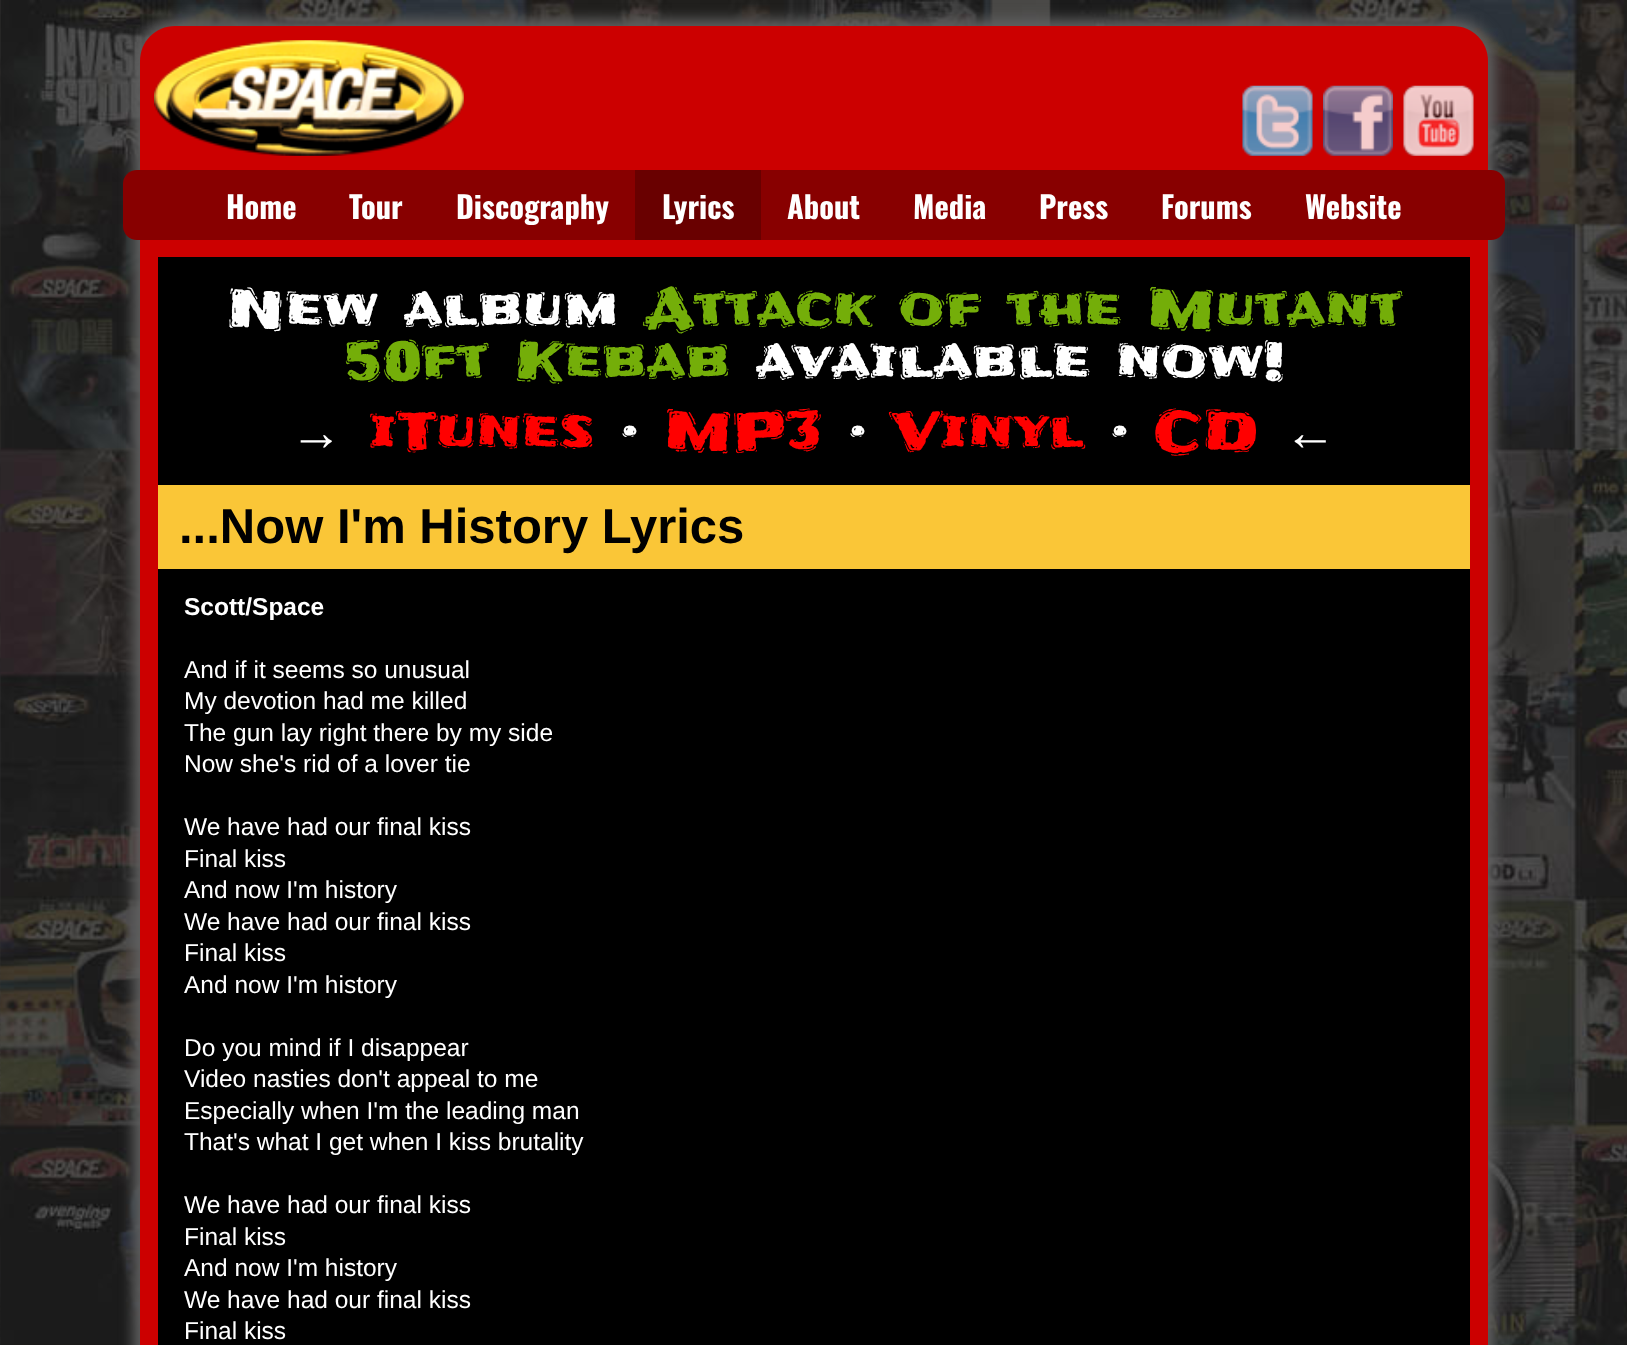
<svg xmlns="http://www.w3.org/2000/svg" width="1627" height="1345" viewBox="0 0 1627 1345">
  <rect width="100%" height="100%" fill="rgb(255,255,255)"/>
  <image x="0" y="0" width="1627" height="1345" href="pic1.png"/>
  <rect x="133" y="19" width="1362" height="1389" rx="42" fill="rgb(96,96,96)" filter="blur(7px)"/>
  <path d="M175 26H1453C1472.5 26 1488 41.5 1488 61V170H140V61C140 41.5 155.5 26 175 26Z" fill="rgb(204,0,0)"/>
  <image x="154" y="40" width="310" height="116" href="pic2.png"/>
  <image x="1242" y="85" width="71" height="71" href="pic3.png"/>
  <image x="1323" y="85" width="70" height="71" href="pic4.png"/>
  <image x="1403" y="85" width="71" height="71" href="pic5.png"/>
  <rect x="123" y="170" width="1382" height="70" rx="14" fill="rgb(136,0,0)"/>
  <g font-family="Oswald" font-size="30.5" font-weight="bold" fill="rgb(255,255,255)">
    <text x="226" y="219">Home</text>
    <text x="349" y="219">Tour</text>
    <text x="456" y="219">Discography</text>
  </g>
  <rect x="635" y="170" width="126" height="70" fill="rgb(105,0,0)"/>
  <g font-family="Oswald" font-size="30.5" font-weight="bold" fill="rgb(255,255,255)">
    <text x="662" y="219">Lyrics</text>
    <text x="787" y="219">About</text>
    <text x="913" y="219">Media</text>
    <text x="1039" y="219">Press</text>
    <text x="1161" y="219">Forums</text>
    <text x="1305" y="219">Website</text>
  </g>
  <rect x="158" y="257" width="1312" height="1088" fill="rgb(0,0,0)"/>
  <rect x="158" y="240" width="1312" height="17" fill="rgb(204,0,0)"/>
  <rect x="1470" y="240" width="18" height="1105" fill="rgb(204,0,0)"/>
  <rect x="140" y="240" width="18" height="1105" fill="rgb(204,0,0)"/>
  <text x="226" y="328" font-family="Frijole" font-size="52.5" fill="rgb(255,255,255)">New album</text>
  <g font-family="Frijole" font-size="52.5" fill="rgb(116,174,9)">
    <text x="644" y="328">Attack of the Mutant</text>
    <text x="344" y="380">50ft Kebab</text>
  </g>
  <text x="756" y="380" font-family="Frijole" font-size="52.5" fill="rgb(255,255,255)">available now!</text>
  <text x="369" y="450" font-family="Frijole" font-size="52.5" fill="rgb(255,0,0)">iTunes</text>
  <text x="620" y="450" font-family="Frijole" font-size="52.5" fill="rgb(255,255,255)">·</text>
  <text x="664" y="450" font-family="Frijole" font-size="52.5" fill="rgb(255,0,0)">MP3</text>
  <text x="848" y="450" font-family="Frijole" font-size="52.5" fill="rgb(255,255,255)">·</text>
  <text x="892" y="450" font-family="Frijole" font-size="52.5" fill="rgb(255,0,0)">Vinyl</text>
  <text x="1110" y="450" font-family="Frijole" font-size="52.5" fill="rgb(255,255,255)">·</text>
  <text x="1154" y="450" font-family="Frijole" font-size="52.5" fill="rgb(255,0,0)">CD</text>
  <g font-family="Liberation Serif" font-size="52.5" fill="rgb(255,255,255)">
    <text x="290" y="450">→</text>
    <text x="1284" y="450">←</text>
  </g>
  <rect x="158" y="485" width="1312" height="84" fill="rgb(250,198,55)"/>
  <text x="179" y="543" font-family="Liberation Sans" font-size="49" font-weight="bold" fill="rgb(0,0,0)">...Now I'm History Lyrics</text>
  <text x="184" y="615" font-family="Liberation Sans" font-size="24.5" font-weight="bold" fill="rgb(255,255,255)">Scott/Space</text>
  <g font-family="Liberation Sans" font-size="24.5" fill="rgb(255,255,255)">
    <text>
      <tspan x="184" y="678">And if it seems so unusual</tspan>
      <tspan x="184" y="709">My devotion had me killed</tspan>
      <tspan x="184" y="741">The gun lay right there by my side</tspan>
      <tspan x="184" y="772">Now she's rid of a lover tie</tspan>
    </text>
    <text>
      <tspan x="184" y="835">We have had our final kiss</tspan>
      <tspan x="184" y="867">Final kiss</tspan>
      <tspan x="184" y="898">And now I'm history</tspan>
      <tspan x="184" y="930">We have had our final kiss</tspan>
      <tspan x="184" y="961">Final kiss</tspan>
      <tspan x="184" y="993">And now I'm history</tspan>
    </text>
    <text>
      <tspan x="184" y="1056">Do you mind if I disappear</tspan>
      <tspan x="184" y="1087">Video nasties don't appeal to me</tspan>
      <tspan x="184" y="1119">Especially when I'm the leading man</tspan>
      <tspan x="184" y="1150">That's what I get when I kiss brutality</tspan>
    </text>
    <text>
      <tspan x="184" y="1213">We have had our final kiss</tspan>
      <tspan x="184" y="1245">Final kiss</tspan>
      <tspan x="184" y="1276">And now I'm history</tspan>
      <tspan x="184" y="1308">We have had our final kiss</tspan>
      <tspan x="184" y="1339">Final kiss</tspan>
    </text>
  </g>
</svg>
